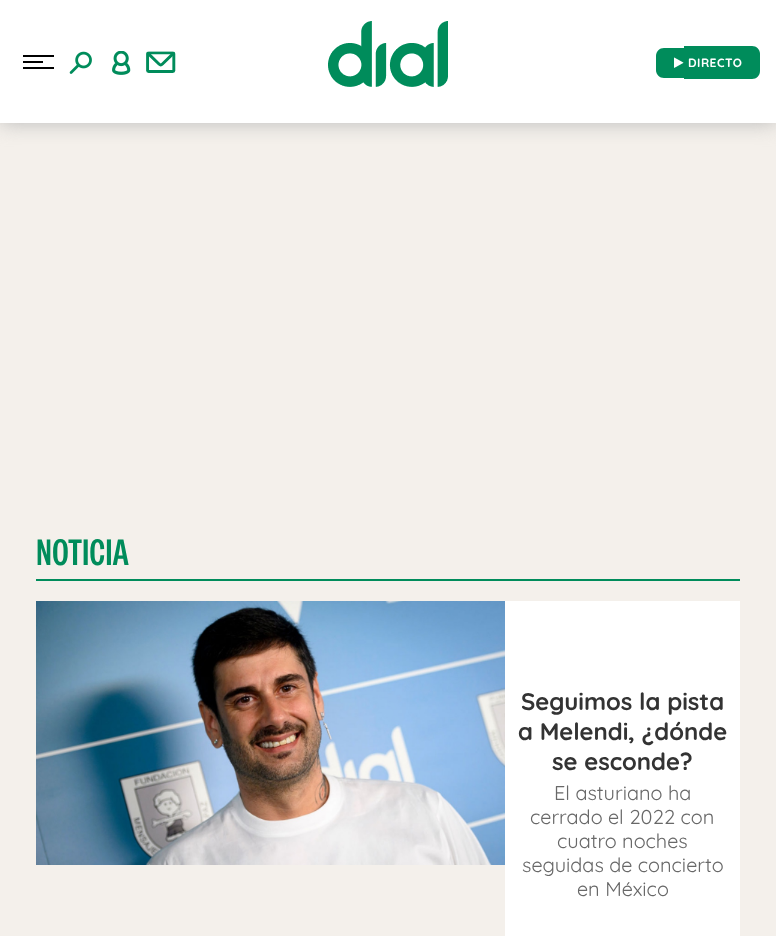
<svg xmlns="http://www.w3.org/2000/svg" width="776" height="936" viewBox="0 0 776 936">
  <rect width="100%" height="100%" fill="rgb(244,240,235)"/>
  <rect x="0" y="0" width="776" height="123" fill="rgb(185,185,185)" filter="blur(10px)"/>
  <rect x="0" y="0" width="776" height="123" fill="rgb(255,255,255)"/>
  <rect x="23" y="61" width="20" height="2" fill="rgb(0,0,0)"/>
  <rect x="23" y="55" width="31" height="2" fill="rgb(0,0,0)"/>
  <rect x="23" y="67" width="31" height="2" fill="rgb(0,0,0)"/>
  <image x="69" y="51" width="23" height="23" href="pic1.png"/>
  <image x="112" y="51" width="19" height="24" href="pic2.png"/>
  <image x="146" y="51" width="30" height="22" href="pic3.png"/>
  <image x="328" y="21" width="120" height="66" href="pic4.png"/>
  <path d="M664 48H684V78H664C659.5 78 656 74.5 656 70V56C656 51.5 659.5 48 664 48Z" fill="rgb(0,140,91)"/>
  <path d="M684 46H752C756.5 46 760 49.5 760 54V71C760 75.5 756.5 79 752 79H684Z" fill="rgb(0,140,91)"/>
  <image x="674" y="57" width="10" height="11" href="pic5.png"/>
  <text x="688" y="67" font-family="Quicksand" font-size="12" font-weight="300" letter-spacing="0.5" fill="rgb(255,255,255)">DIRECTO</text>
  <rect x="36" y="579" width="704" height="2" fill="rgb(0,140,91)"/>
  <text x="36" y="565" font-family="Special Gothic Condensed One" font-size="36" fill="rgb(0,140,91)">NOTICIA</text>
  <image x="36" y="601" width="469" height="264" href="pic6.png"/>
  <rect x="505" y="601" width="235" height="335" fill="rgb(255,255,255)"/>
  <g font-family="Quicksand" font-size="24" font-weight="300" fill="rgb(51,51,51)">
    <text x="521" y="710">Seguimos la pista</text>
    <text x="518" y="740">a Melendi, ¿dónde</text>
    <text x="552" y="770">se esconde?</text>
  </g>
  <g font-family="'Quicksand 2'" font-size="20" font-weight="300" fill="rgb(104,104,104)">
    <text x="554" y="800">El asturiano ha</text>
    <text x="530" y="824">cerrado el 2022 con</text>
    <text x="557" y="848">cuatro noches</text>
    <text x="522" y="872">seguidas de concierto</text>
    <text x="577" y="896">en México</text>
  </g>
</svg>
